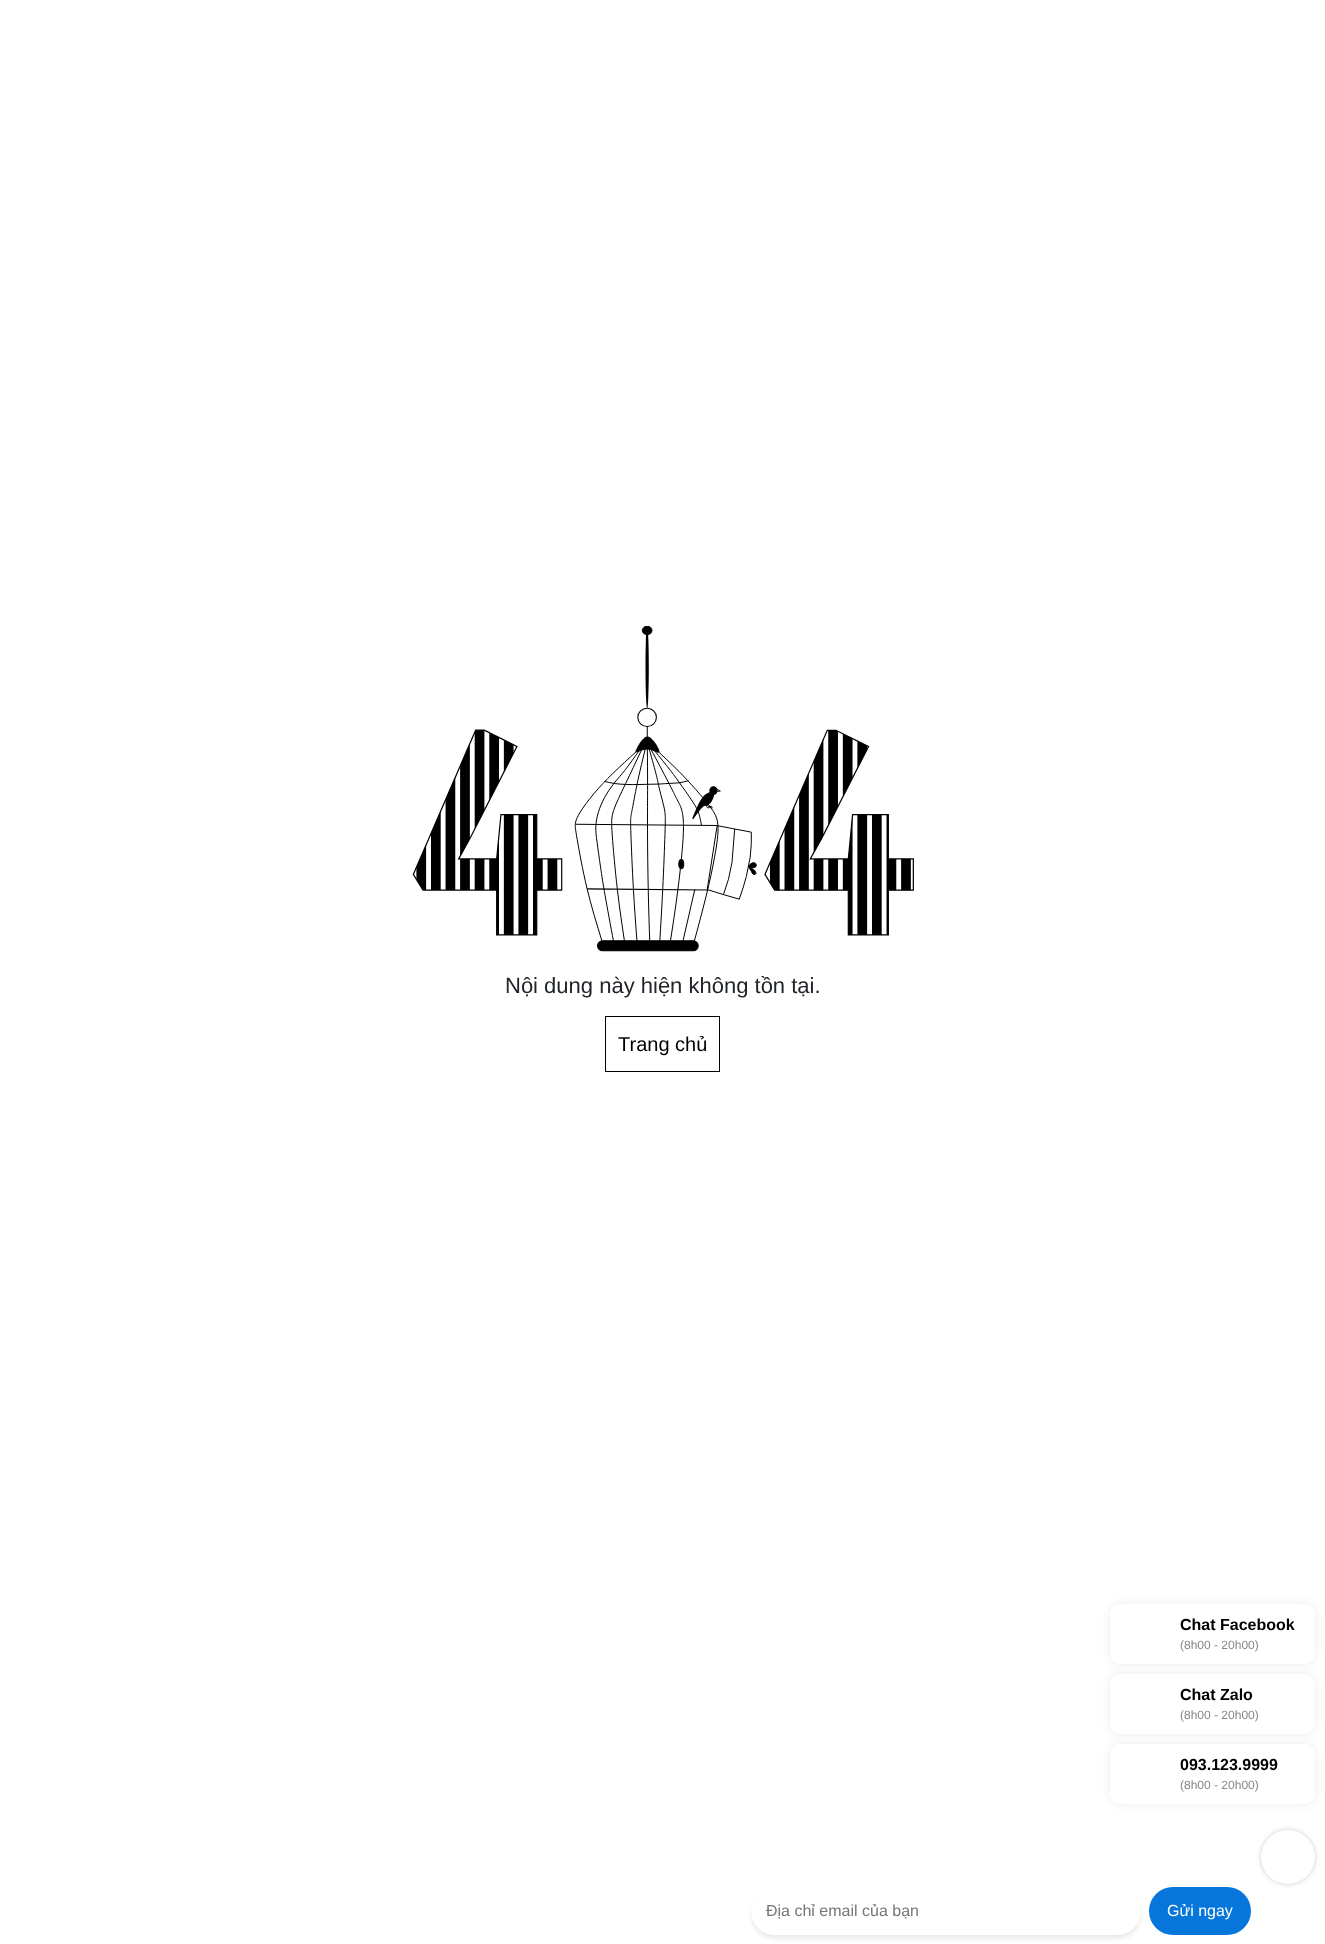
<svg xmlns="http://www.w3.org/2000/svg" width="1325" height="1944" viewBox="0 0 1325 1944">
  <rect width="100%" height="100%" fill="rgb(255,255,255)"/>
  <image x="412" y="626" width="502" height="326" href="pic1.png"/>
  <text x="505" y="993" font-family="Liberation Sans" font-size="22" fill="rgb(33,37,41)">Nội dung này hiện không tồn tại.</text>
  <rect x="605.5" y="1016.5" width="114" height="55" fill="none" stroke="rgb(0,0,0)"/>
  <text x="618" y="1051" font-family="Liberation Sans" font-size="20" fill="rgb(0,0,0)">Trang chủ</text>
  <rect x="1110" y="1604" width="205" height="60" rx="10" fill="rgba(0,0,0,0.08)" filter="blur(5px)"/>
  <rect x="1110" y="1604" width="205" height="60" rx="10" fill="rgb(255,255,255)"/>
  <text x="1180" y="1630" font-family="Liberation Sans" font-size="16" font-weight="bold" fill="rgb(0,0,0)">Chat Facebook</text>
  <text x="1180" y="1649" font-family="Liberation Sans" font-size="12" fill="rgb(134,134,134)">(8h00 - 20h00)</text>
  <rect x="1110" y="1674" width="205" height="60" rx="10" fill="rgba(0,0,0,0.08)" filter="blur(5px)"/>
  <rect x="1110" y="1674" width="205" height="60" rx="10" fill="rgb(255,255,255)"/>
  <text x="1180" y="1700" font-family="Liberation Sans" font-size="16" font-weight="bold" fill="rgb(0,0,0)">Chat Zalo</text>
  <text x="1180" y="1719" font-family="Liberation Sans" font-size="12" fill="rgb(134,134,134)">(8h00 - 20h00)</text>
  <rect x="1110" y="1744" width="205" height="60" rx="10" fill="rgba(0,0,0,0.08)" filter="blur(5px)"/>
  <rect x="1110" y="1744" width="205" height="60" rx="10" fill="rgb(255,255,255)"/>
  <text x="1180" y="1770" font-family="Liberation Sans" font-size="16" font-weight="bold" fill="rgb(0,0,0)">093.123.9999</text>
  <text x="1180" y="1789" font-family="Liberation Sans" font-size="12" fill="rgb(134,134,134)">(8h00 - 20h00)</text>
  <rect x="1261" y="1830" width="54" height="54" rx="27" fill="rgba(0,0,0,0.2)" filter="blur(2.5px)"/>
  <circle cx="1288" cy="1857" r="27" fill="rgb(255,255,255)"/>
  <rect x="751" y="1891" width="390" height="48" rx="24" fill="rgba(0,0,0,0.08)" filter="blur(2px)"/>
  <rect x="751" y="1887" width="390" height="48" rx="24" fill="rgb(255,255,255)"/>
  <text x="766" y="1916" font-family="Liberation Sans" font-size="16" fill="rgb(117,117,117)">Địa chỉ email của bạn</text>
  <rect x="1149" y="1887" width="102" height="48" rx="24" fill="rgb(6,118,218)"/>
  <text x="1167" y="1916" font-family="Liberation Sans" font-size="16" fill="rgb(255,255,255)">Gửi ngay</text>
</svg>
